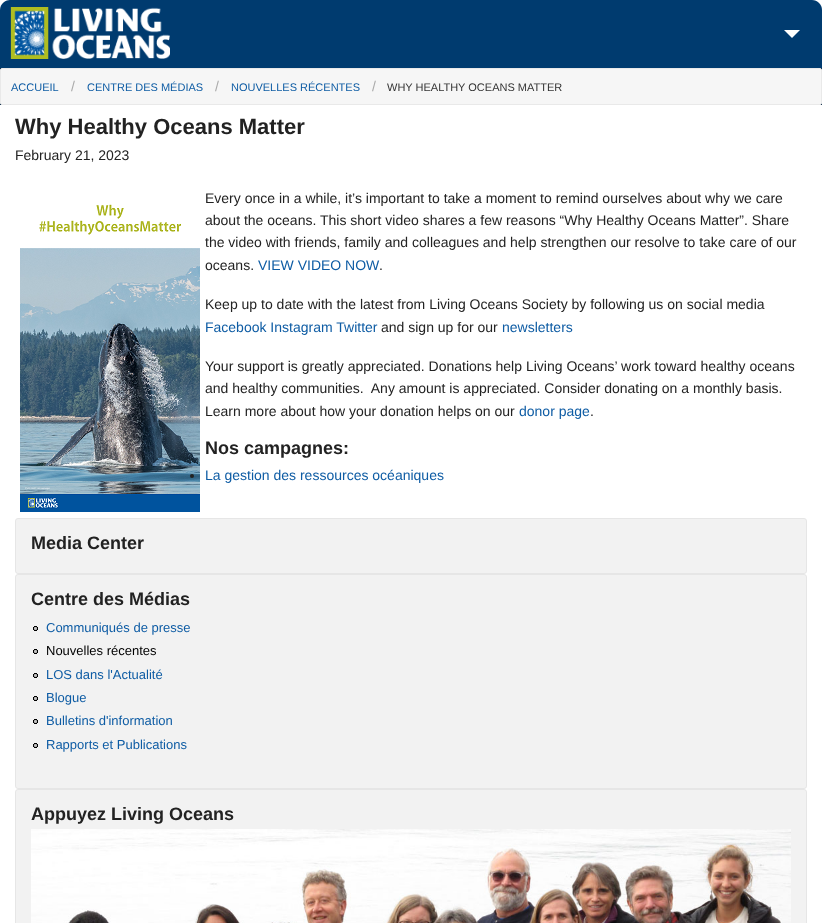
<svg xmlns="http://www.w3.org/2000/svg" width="822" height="923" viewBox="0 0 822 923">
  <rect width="100%" height="100%" fill="rgb(0,34,63)"/>
  <rect x="0" y="0" width="822" height="10" fill="rgb(255,255,255)"/>
  <path d="M10 0H812C817.5 0 822 4.5 822 10V68H0V10C0 4.5 4.5 0 10 0Z" fill="rgb(0,59,111)"/>
  <image x="10" y="7" width="160" height="52" href="pic1.png"/>
  <path d="M784 30H800L792 38Z" fill="rgb(255,255,255)"/>
  <rect x="0.5" y="68.5" width="821" height="36" rx="1.5" fill="rgb(246,246,246)" stroke="rgb(233,233,233)"/>
  <text x="11" y="91" font-family="Liberation Sans" font-size="11" fill="rgb(14,92,164)">ACCUEIL</text>
  <text x="71" y="91" font-family="Liberation Sans" font-size="14" fill="rgb(170,170,170)">/</text>
  <text x="87" y="91" font-family="Liberation Sans" font-size="11" fill="rgb(14,92,164)">CENTRE DES MÉDIAS</text>
  <text x="215" y="91" font-family="Liberation Sans" font-size="14" fill="rgb(170,170,170)">/</text>
  <text x="231" y="91" font-family="Liberation Sans" font-size="11" fill="rgb(14,92,164)">NOUVELLES RÉCENTES</text>
  <text x="372" y="91" font-family="Liberation Sans" font-size="14" fill="rgb(170,170,170)">/</text>
  <text x="387" y="91" font-family="Liberation Sans" font-size="11" fill="rgb(51,51,51)">WHY HEALTHY OCEANS MATTER</text>
  <rect x="0" y="105" width="822" height="818" fill="rgb(255,255,255)"/>
  <text x="15" y="134" font-family="Liberation Sans" font-size="22" font-weight="bold" fill="rgb(34,34,34)">Why Healthy Oceans Matter</text>
  <g font-family="Liberation Sans" font-size="14" fill="rgb(34,34,34)">
    <text x="15" y="160">February 21, 2023</text>
    <text x="205" y="203">Every once in a while, it’s important to take a moment to remind ourselves about why we care</text>
  </g>
  <image x="20" y="204" width="180" height="308" href="pic2.png"/>
  <g font-family="Liberation Sans" font-size="14" fill="rgb(34,34,34)">
    <text>
      <tspan x="205" y="225">about the oceans. This short video shares a few reasons “Why Healthy Oceans Matter”. Share</tspan>
      <tspan x="205" y="247">the video with friends, family and colleagues and help strengthen our resolve to take care of our</tspan>
      <tspan x="205" y="270">oceans.</tspan>
    </text>
  </g>
  <text x="258" y="270" font-family="Liberation Sans" font-size="14" fill="rgb(14,92,164)">VIEW VIDEO NOW</text>
  <g font-family="Liberation Sans" font-size="14" fill="rgb(34,34,34)">
    <text x="379" y="270">.</text>
    <text x="205" y="309">Keep up to date with the latest from Living Oceans Society by following us on social media</text>
  </g>
  <text x="205" y="332" font-family="Liberation Sans" font-size="14" fill="rgb(14,92,164)">Facebook Instagram Twitter</text>
  <text x="381" y="332" font-family="Liberation Sans" font-size="14" fill="rgb(34,34,34)">and sign up for our</text>
  <text x="502" y="332" font-family="Liberation Sans" font-size="14" fill="rgb(14,92,164)">newsletters</text>
  <g font-family="Liberation Sans" font-size="14" fill="rgb(34,34,34)">
    <text xml:space="preserve"><tspan x="205" y="371">Your support is greatly appreciated. Donations help Living Oceans’ work toward healthy oceans</tspan><tspan x="205" y="393">and healthy communities.  Any amount is appreciated. Consider donating on a monthly basis.</tspan><tspan x="205" y="416">Learn more about how your donation helps on our</tspan></text>
  </g>
  <text x="519" y="416" font-family="Liberation Sans" font-size="14" fill="rgb(14,92,164)">donor page</text>
  <text x="590" y="416" font-family="Liberation Sans" font-size="14" fill="rgb(34,34,34)">.</text>
  <text x="205" y="454" font-family="Liberation Sans" font-size="18" font-weight="bold" fill="rgb(34,34,34)">Nos campagnes:</text>
  <circle cx="192" cy="476" r="2" fill="rgb(34,34,34)"/>
  <text x="205" y="480" font-family="Liberation Sans" font-size="14" fill="rgb(14,92,164)">La gestion des ressources océaniques</text>
  <rect x="15.5" y="518.5" width="791" height="55" rx="2.5" fill="rgb(242,242,242)" stroke="rgb(230,230,230)"/>
  <text x="31" y="549" font-family="Liberation Sans" font-size="18" font-weight="bold" fill="rgb(34,34,34)">Media Center</text>
  <rect x="15.5" y="574.5" width="791" height="214" rx="2.5" fill="rgb(242,242,242)" stroke="rgb(230,230,230)"/>
  <text x="31" y="605" font-family="Liberation Sans" font-size="18" font-weight="bold" fill="rgb(34,34,34)">Centre des Médias</text>
  <image x="33" y="626" width="5" height="5" href="pic3.png"/>
  <text x="46" y="632" font-family="Liberation Sans" font-size="13" fill="rgb(14,92,164)">Communiqués de presse</text>
  <image x="33" y="649" width="5" height="5" href="pic3.png"/>
  <text x="46" y="655" font-family="Liberation Sans" font-size="13" fill="rgb(0,0,0)">Nouvelles récentes</text>
  <image x="33" y="673" width="5" height="5" href="pic3.png"/>
  <text x="46" y="679" font-family="Liberation Sans" font-size="13" fill="rgb(14,92,164)">LOS dans l'Actualité</text>
  <image x="33" y="696" width="5" height="5" href="pic3.png"/>
  <text x="46" y="702" font-family="Liberation Sans" font-size="13" fill="rgb(14,92,164)">Blogue</text>
  <image x="33" y="719" width="5" height="5" href="pic3.png"/>
  <text x="46" y="725" font-family="Liberation Sans" font-size="13" fill="rgb(14,92,164)">Bulletins d'information</text>
  <image x="33" y="743" width="5" height="5" href="pic3.png"/>
  <text x="46" y="749" font-family="Liberation Sans" font-size="13" fill="rgb(14,92,164)">Rapports et Publications</text>
  <rect x="15.5" y="789.5" width="791" height="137" rx="2.5" fill="rgb(242,242,242)" stroke="rgb(230,230,230)"/>
  <text x="31" y="820" font-family="Liberation Sans" font-size="18" font-weight="bold" fill="rgb(34,34,34)">Appuyez Living Oceans</text>
  <image x="31" y="829" width="760" height="94" href="pic4.png"/>
</svg>
